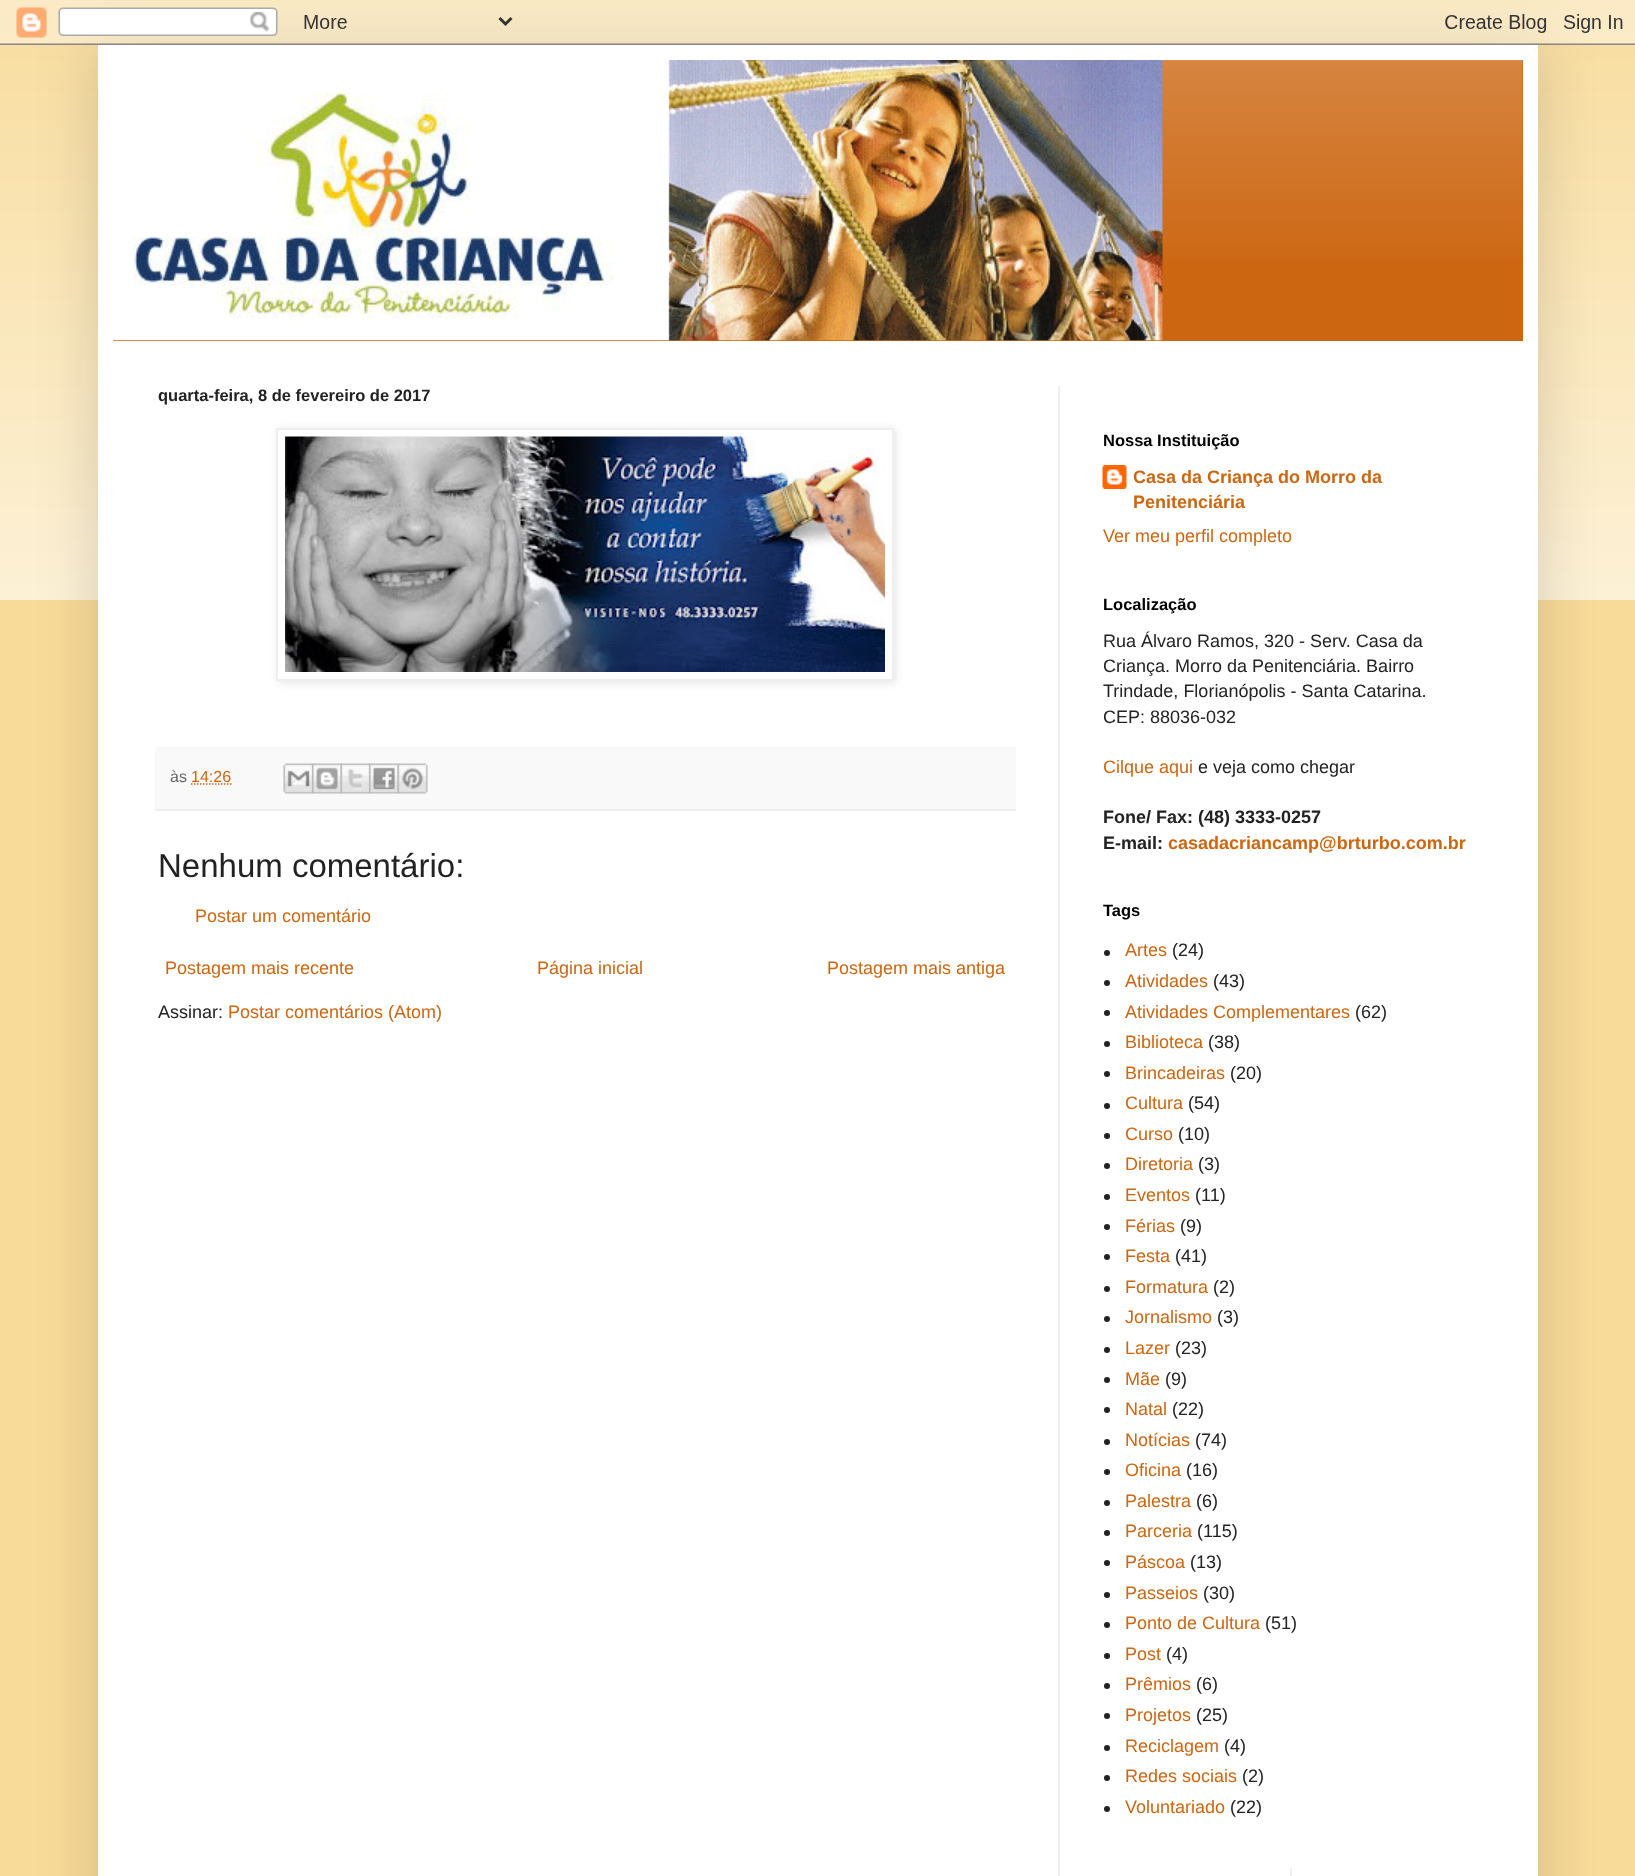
<svg xmlns="http://www.w3.org/2000/svg" width="1635" height="1876" viewBox="0 0 1635 1876">
  <defs>
    <clipPath id="clip1"><path d="M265 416H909V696H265ZM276 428H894V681H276Z" clip-rule="evenodd"/></clipPath>
  </defs>
  <rect width="100%" height="100%" fill="rgb(248,219,153)"/>
  <image x="0" y="0" width="1635" height="600" href="pic1.png"/>
  <rect x="98" y="45" width="1440" height="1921" fill="rgba(0,0,0,0.15)" filter="blur(30px)"/>
  <image x="0" y="0" width="1635" height="45" href="pic2.png"/>
  <rect x="98" y="45" width="1440" height="1831" fill="rgb(255,255,255)"/>
  <rect x="113" y="60" width="1410" height="281" fill="rgb(204,102,17)"/>
  <image x="1162" y="60" width="361" height="199" href="pic3.png"/>
  <image x="113" y="60" width="1050" height="281" href="pic4.png"/>
  <rect x="1058" y="386" width="2" height="1490" fill="rgb(238,238,238)"/>
  <text x="158" y="401" font-family="Liberation Sans" font-size="16.5" font-weight="bold" fill="rgb(34,34,34)">quarta-feira, 8 de fevereiro de 2017</text>
  <g clip-path="url(#clip1)">
    <rect x="278" y="429" width="618" height="254" fill="rgba(0,0,0,0.1)" filter="blur(4px)"/>
  </g>
  <rect x="277" y="429" width="616" height="251" fill="none" stroke="rgb(238,238,238)" stroke-width="2"/>
  <image x="285" y="436" width="600" height="236" href="pic5.png"/>
  <rect x="155" y="747" width="861" height="62" fill="rgb(249,249,249)"/>
  <rect x="155" y="809" width="861" height="2" fill="rgb(238,238,238)"/>
  <text x="170" y="782" font-family="Liberation Sans" font-size="16" fill="rgb(102,102,102)">às</text>
  <text x="191" y="782" font-family="Liberation Sans" font-size="16" fill="rgb(204,102,17)">14:26</text>
  <path d="M191 784H231.5" fill="none" stroke="rgb(204,102,17)" stroke-width="1.5" stroke-dasharray="1.5 1.5"/>
  <image x="283" y="763" width="31" height="31" href="pic6.png"/>
  <image x="312" y="763" width="30" height="31" href="pic7.png"/>
  <image x="340" y="763" width="31" height="31" href="pic8.png"/>
  <image x="369" y="763" width="30" height="31" href="pic9.png"/>
  <image x="397" y="763" width="31" height="31" href="pic10.png"/>
  <text x="158" y="877" font-family="Liberation Sans" font-size="33" fill="rgb(34,34,34)">Nenhum comentário:</text>
  <g font-family="Liberation Sans" font-size="18" fill="rgb(204,102,17)">
    <text x="195" y="922">Postar um comentário</text>
    <text x="165" y="974">Postagem mais recente</text>
    <text x="537" y="974">Página inicial</text>
    <text x="827" y="974">Postagem mais antiga</text>
  </g>
  <text x="158" y="1018" font-family="Liberation Sans" font-size="18" fill="rgb(34,34,34)">Assinar:</text>
  <text x="228" y="1018" font-family="Liberation Sans" font-size="18" fill="rgb(204,102,17)">Postar comentários (Atom)</text>
  <text x="1103" y="446" font-family="Liberation Sans" font-size="16.5" font-weight="bold" fill="rgb(0,0,0)">Nossa Instituição</text>
  <image x="1102" y="465" width="25" height="24" href="pic11.png"/>
  <g font-family="Liberation Sans" font-size="18" font-weight="bold" fill="rgb(204,102,17)">
    <text>
      <tspan x="1133" y="483">Casa da Criança do Morro da</tspan>
      <tspan x="1133" y="508">Penitenciária</tspan>
    </text>
  </g>
  <text x="1103" y="542" font-family="Liberation Sans" font-size="18" fill="rgb(204,102,17)">Ver meu perfil completo</text>
  <text x="1103" y="610" font-family="Liberation Sans" font-size="16.5" font-weight="bold" fill="rgb(0,0,0)">Localização</text>
  <g font-family="Liberation Sans" font-size="18" fill="rgb(34,34,34)">
    <text>
      <tspan x="1103" y="647">Rua Álvaro Ramos, 320 - Serv. Casa da</tspan>
      <tspan x="1103" y="672">Criança. Morro da Penitenciária. Bairro</tspan>
      <tspan x="1103" y="697">Trindade, Florianópolis - Santa Catarina.</tspan>
      <tspan x="1103" y="723">CEP: 88036-032</tspan>
    </text>
  </g>
  <text x="1103" y="773" font-family="Liberation Sans" font-size="18" fill="rgb(204,102,17)">Cilque aqui</text>
  <text x="1198" y="773" font-family="Liberation Sans" font-size="18" fill="rgb(34,34,34)">e veja como chegar</text>
  <g font-family="Liberation Sans" font-size="18" font-weight="bold" fill="rgb(34,34,34)">
    <text>
      <tspan x="1103" y="823">Fone/ Fax: (48) 3333-0257</tspan>
      <tspan x="1103" y="849">E-mail:</tspan>
    </text>
  </g>
  <text x="1168" y="849" font-family="Liberation Sans" font-size="18" font-weight="bold" fill="rgb(204,102,17)">casadacriancamp@brturbo.com.br</text>
  <text x="1103" y="916" font-family="Liberation Sans" font-size="16.5" font-weight="bold" fill="rgb(0,0,0)">Tags</text>
  <circle cx="1107" cy="953" r="3" fill="rgb(34,34,34)"/>
  <text x="1125" y="956" font-family="Liberation Sans" font-size="18" fill="rgb(204,102,17)">Artes</text>
  <text x="1172" y="956" font-family="Liberation Sans" font-size="18" fill="rgb(34,34,34)">(24)</text>
  <circle cx="1107" cy="983" r="3" fill="rgb(34,34,34)"/>
  <text x="1125" y="987" font-family="Liberation Sans" font-size="18" fill="rgb(204,102,17)">Atividades</text>
  <text x="1213" y="987" font-family="Liberation Sans" font-size="18" fill="rgb(34,34,34)">(43)</text>
  <circle cx="1107" cy="1013" r="3" fill="rgb(34,34,34)"/>
  <text x="1125" y="1018" font-family="Liberation Sans" font-size="18" fill="rgb(204,102,17)">Atividades Complementares</text>
  <text x="1355" y="1018" font-family="Liberation Sans" font-size="18" fill="rgb(34,34,34)">(62)</text>
  <circle cx="1107" cy="1044" r="3" fill="rgb(34,34,34)"/>
  <text x="1125" y="1048" font-family="Liberation Sans" font-size="18" fill="rgb(204,102,17)">Biblioteca</text>
  <text x="1208" y="1048" font-family="Liberation Sans" font-size="18" fill="rgb(34,34,34)">(38)</text>
  <circle cx="1107" cy="1074" r="3" fill="rgb(34,34,34)"/>
  <text x="1125" y="1079" font-family="Liberation Sans" font-size="18" fill="rgb(204,102,17)">Brincadeiras</text>
  <text x="1230" y="1079" font-family="Liberation Sans" font-size="18" fill="rgb(34,34,34)">(20)</text>
  <circle cx="1107" cy="1106" r="3" fill="rgb(34,34,34)"/>
  <text x="1125" y="1109" font-family="Liberation Sans" font-size="18" fill="rgb(204,102,17)">Cultura</text>
  <text x="1188" y="1109" font-family="Liberation Sans" font-size="18" fill="rgb(34,34,34)">(54)</text>
  <circle cx="1107" cy="1136" r="3" fill="rgb(34,34,34)"/>
  <text x="1125" y="1140" font-family="Liberation Sans" font-size="18" fill="rgb(204,102,17)">Curso</text>
  <text x="1178" y="1140" font-family="Liberation Sans" font-size="18" fill="rgb(34,34,34)">(10)</text>
  <circle cx="1107" cy="1166" r="3" fill="rgb(34,34,34)"/>
  <text x="1125" y="1170" font-family="Liberation Sans" font-size="18" fill="rgb(204,102,17)">Diretoria</text>
  <text x="1198" y="1170" font-family="Liberation Sans" font-size="18" fill="rgb(34,34,34)">(3)</text>
  <circle cx="1107" cy="1197" r="3" fill="rgb(34,34,34)"/>
  <text x="1125" y="1201" font-family="Liberation Sans" font-size="18" fill="rgb(204,102,17)">Eventos</text>
  <text x="1195" y="1201" font-family="Liberation Sans" font-size="18" fill="rgb(34,34,34)">(11)</text>
  <circle cx="1107" cy="1227" r="3" fill="rgb(34,34,34)"/>
  <text x="1125" y="1232" font-family="Liberation Sans" font-size="18" fill="rgb(204,102,17)">Férias</text>
  <text x="1180" y="1232" font-family="Liberation Sans" font-size="18" fill="rgb(34,34,34)">(9)</text>
  <circle cx="1107" cy="1257" r="3" fill="rgb(34,34,34)"/>
  <text x="1125" y="1262" font-family="Liberation Sans" font-size="18" fill="rgb(204,102,17)">Festa</text>
  <text x="1175" y="1262" font-family="Liberation Sans" font-size="18" fill="rgb(34,34,34)">(41)</text>
  <circle cx="1107" cy="1289" r="3" fill="rgb(34,34,34)"/>
  <text x="1125" y="1293" font-family="Liberation Sans" font-size="18" fill="rgb(204,102,17)">Formatura</text>
  <text x="1213" y="1293" font-family="Liberation Sans" font-size="18" fill="rgb(34,34,34)">(2)</text>
  <circle cx="1107" cy="1319" r="3" fill="rgb(34,34,34)"/>
  <text x="1125" y="1323" font-family="Liberation Sans" font-size="18" fill="rgb(204,102,17)">Jornalismo</text>
  <text x="1217" y="1323" font-family="Liberation Sans" font-size="18" fill="rgb(34,34,34)">(3)</text>
  <circle cx="1107" cy="1350" r="3" fill="rgb(34,34,34)"/>
  <text x="1125" y="1354" font-family="Liberation Sans" font-size="18" fill="rgb(204,102,17)">Lazer</text>
  <text x="1175" y="1354" font-family="Liberation Sans" font-size="18" fill="rgb(34,34,34)">(23)</text>
  <circle cx="1107" cy="1380" r="3" fill="rgb(34,34,34)"/>
  <text x="1125" y="1385" font-family="Liberation Sans" font-size="18" fill="rgb(204,102,17)">Mãe</text>
  <text x="1165" y="1385" font-family="Liberation Sans" font-size="18" fill="rgb(34,34,34)">(9)</text>
  <circle cx="1107" cy="1410" r="3" fill="rgb(34,34,34)"/>
  <text x="1125" y="1415" font-family="Liberation Sans" font-size="18" fill="rgb(204,102,17)">Natal</text>
  <text x="1172" y="1415" font-family="Liberation Sans" font-size="18" fill="rgb(34,34,34)">(22)</text>
  <circle cx="1107" cy="1442" r="3" fill="rgb(34,34,34)"/>
  <text x="1125" y="1446" font-family="Liberation Sans" font-size="18" fill="rgb(204,102,17)">Notícias</text>
  <text x="1195" y="1446" font-family="Liberation Sans" font-size="18" fill="rgb(34,34,34)">(74)</text>
  <circle cx="1107" cy="1472" r="3" fill="rgb(34,34,34)"/>
  <text x="1125" y="1476" font-family="Liberation Sans" font-size="18" fill="rgb(204,102,17)">Oficina</text>
  <text x="1186" y="1476" font-family="Liberation Sans" font-size="18" fill="rgb(34,34,34)">(16)</text>
  <circle cx="1107" cy="1503" r="3" fill="rgb(34,34,34)"/>
  <text x="1125" y="1507" font-family="Liberation Sans" font-size="18" fill="rgb(204,102,17)">Palestra</text>
  <text x="1196" y="1507" font-family="Liberation Sans" font-size="18" fill="rgb(34,34,34)">(6)</text>
  <circle cx="1107" cy="1533" r="3" fill="rgb(34,34,34)"/>
  <text x="1125" y="1537" font-family="Liberation Sans" font-size="18" fill="rgb(204,102,17)">Parceria</text>
  <text x="1197" y="1537" font-family="Liberation Sans" font-size="18" fill="rgb(34,34,34)">(115)</text>
  <circle cx="1107" cy="1563" r="3" fill="rgb(34,34,34)"/>
  <text x="1125" y="1568" font-family="Liberation Sans" font-size="18" fill="rgb(204,102,17)">Páscoa</text>
  <text x="1190" y="1568" font-family="Liberation Sans" font-size="18" fill="rgb(34,34,34)">(13)</text>
  <circle cx="1107" cy="1595" r="3" fill="rgb(34,34,34)"/>
  <text x="1125" y="1599" font-family="Liberation Sans" font-size="18" fill="rgb(204,102,17)">Passeios</text>
  <text x="1203" y="1599" font-family="Liberation Sans" font-size="18" fill="rgb(34,34,34)">(30)</text>
  <circle cx="1107" cy="1625" r="3" fill="rgb(34,34,34)"/>
  <text x="1125" y="1629" font-family="Liberation Sans" font-size="18" fill="rgb(204,102,17)">Ponto de Cultura</text>
  <text x="1265" y="1629" font-family="Liberation Sans" font-size="18" fill="rgb(34,34,34)">(51)</text>
  <circle cx="1107" cy="1656" r="3" fill="rgb(34,34,34)"/>
  <text x="1125" y="1660" font-family="Liberation Sans" font-size="18" fill="rgb(204,102,17)">Post</text>
  <text x="1166" y="1660" font-family="Liberation Sans" font-size="18" fill="rgb(34,34,34)">(4)</text>
  <circle cx="1107" cy="1686" r="3" fill="rgb(34,34,34)"/>
  <text x="1125" y="1690" font-family="Liberation Sans" font-size="18" fill="rgb(204,102,17)">Prêmios</text>
  <text x="1196" y="1690" font-family="Liberation Sans" font-size="18" fill="rgb(34,34,34)">(6)</text>
  <circle cx="1107" cy="1716" r="3" fill="rgb(34,34,34)"/>
  <text x="1125" y="1721" font-family="Liberation Sans" font-size="18" fill="rgb(204,102,17)">Projetos</text>
  <text x="1196" y="1721" font-family="Liberation Sans" font-size="18" fill="rgb(34,34,34)">(25)</text>
  <circle cx="1107" cy="1748" r="3" fill="rgb(34,34,34)"/>
  <text x="1125" y="1752" font-family="Liberation Sans" font-size="18" fill="rgb(204,102,17)">Reciclagem</text>
  <text x="1224" y="1752" font-family="Liberation Sans" font-size="18" fill="rgb(34,34,34)">(4)</text>
  <circle cx="1107" cy="1778" r="3" fill="rgb(34,34,34)"/>
  <text x="1125" y="1782" font-family="Liberation Sans" font-size="18" fill="rgb(204,102,17)">Redes sociais</text>
  <text x="1242" y="1782" font-family="Liberation Sans" font-size="18" fill="rgb(34,34,34)">(2)</text>
  <circle cx="1107" cy="1809" r="3" fill="rgb(34,34,34)"/>
  <text x="1125" y="1813" font-family="Liberation Sans" font-size="18" fill="rgb(204,102,17)">Voluntariado</text>
  <text x="1230" y="1813" font-family="Liberation Sans" font-size="18" fill="rgb(34,34,34)">(22)</text>
  <rect x="1290" y="1868" width="2" height="8" fill="rgb(238,238,238)"/>
</svg>
